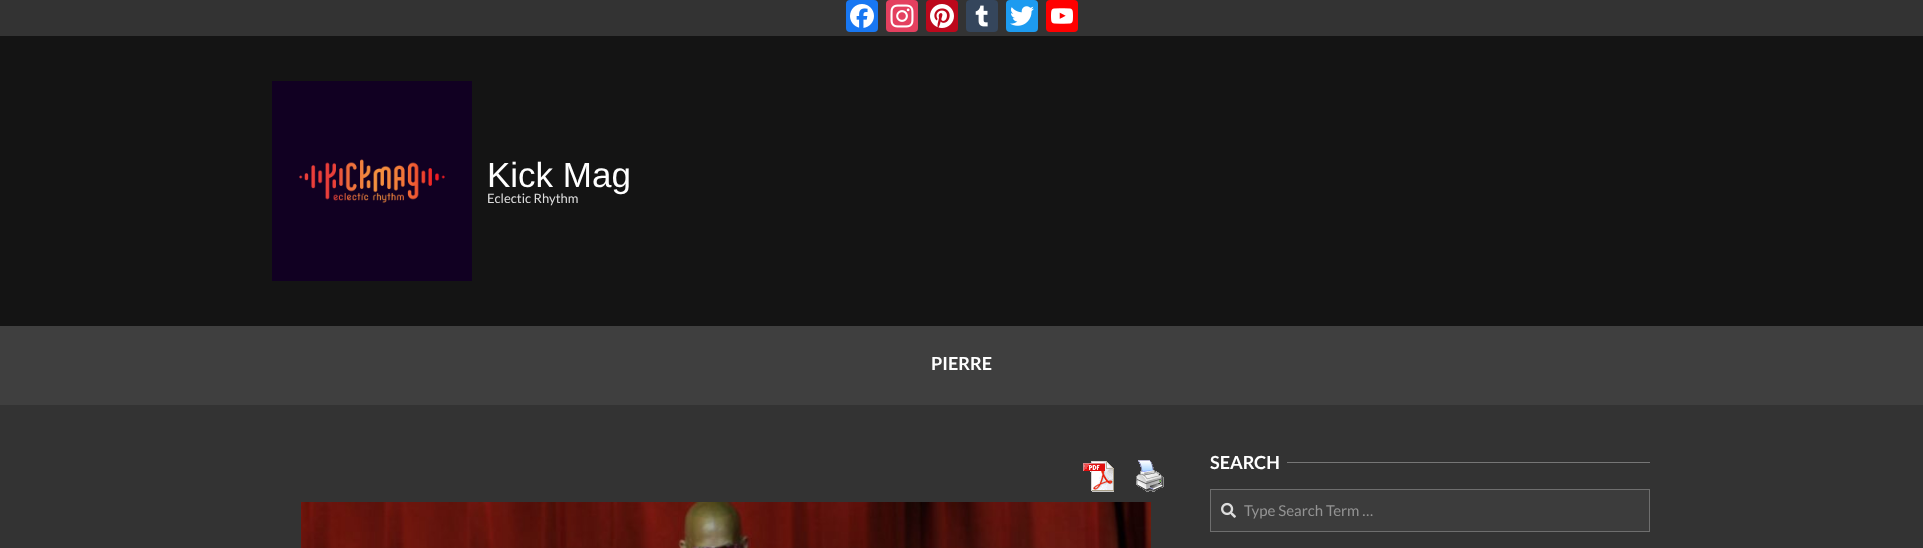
<svg xmlns="http://www.w3.org/2000/svg" width="1923" height="548" viewBox="0 0 1923 548">
  <rect width="100%" height="100%" fill="rgb(20,20,20)"/>
  <rect x="0" y="0" width="1923" height="36" fill="rgb(51,51,51)"/>
  <rect x="846" y="0" width="32" height="32" rx="4" fill="rgb(24,119,242)"/>
  <image x="850" y="4" width="24" height="24" href="pic1.png"/>
  <rect x="886" y="0" width="32" height="32" rx="4" fill="rgb(228,64,95)"/>
  <image x="890" y="4" width="24" height="24" href="pic2.png"/>
  <rect x="926" y="0" width="32" height="32" rx="4" fill="rgb(189,8,28)"/>
  <image x="930" y="4" width="24" height="24" href="pic3.png"/>
  <rect x="966" y="0" width="32" height="32" rx="4" fill="rgb(53,70,92)"/>
  <image x="975" y="5" width="13" height="22" href="pic4.png"/>
  <rect x="1006" y="0" width="32" height="32" rx="4" fill="rgb(29,155,240)"/>
  <image x="1010" y="6" width="24" height="20" href="pic5.png"/>
  <rect x="1046" y="0" width="32" height="32" rx="4" fill="rgb(255,0,0)"/>
  <image x="1051" y="8" width="22" height="16" href="pic6.png"/>
  <image x="272" y="81" width="200" height="200" href="pic7.png"/>
  <text x="487" y="187" font-family="Liberation Sans" font-size="35" fill="rgb(255,255,255)">Kick Mag</text>
  <text x="487" y="203" font-family="Lato" font-size="13" fill="rgb(221,221,221)">Eclectic Rhythm</text>
  <rect x="0" y="405" width="1923" height="143" fill="rgb(51,51,51)"/>
  <rect x="0" y="326" width="1923" height="79" fill="rgb(63,63,63)"/>
  <text x="931" y="370" font-family="Lato" font-size="18" font-weight="bold" fill="rgb(255,255,255)">PIERRE</text>
  <image x="1083" y="461" width="31" height="31" href="pic8.png"/>
  <image x="1136" y="460" width="28" height="32" href="pic9.png"/>
  <image x="301" y="502" width="850" height="46" href="pic10.png"/>
  <text x="1210" y="469" font-family="Lato" font-size="18" font-weight="bold" fill="rgb(255,255,255)">SEARCH</text>
  <rect x="1287" y="462" width="363" height="1" fill="rgb(118,118,118)"/>
  <rect x="1210.5" y="489.5" width="439" height="42" fill="none" stroke="rgb(110,110,110)"/>
  <rect x="1211" y="490" width="438" height="41" fill="rgb(60,60,60)"/>
  <image x="1221" y="502" width="15" height="16" href="pic11.png"/>
  <text x="1244" y="516" font-family="Lato" font-size="15" fill="rgb(148,148,148)">Type Search Term …</text>
</svg>
